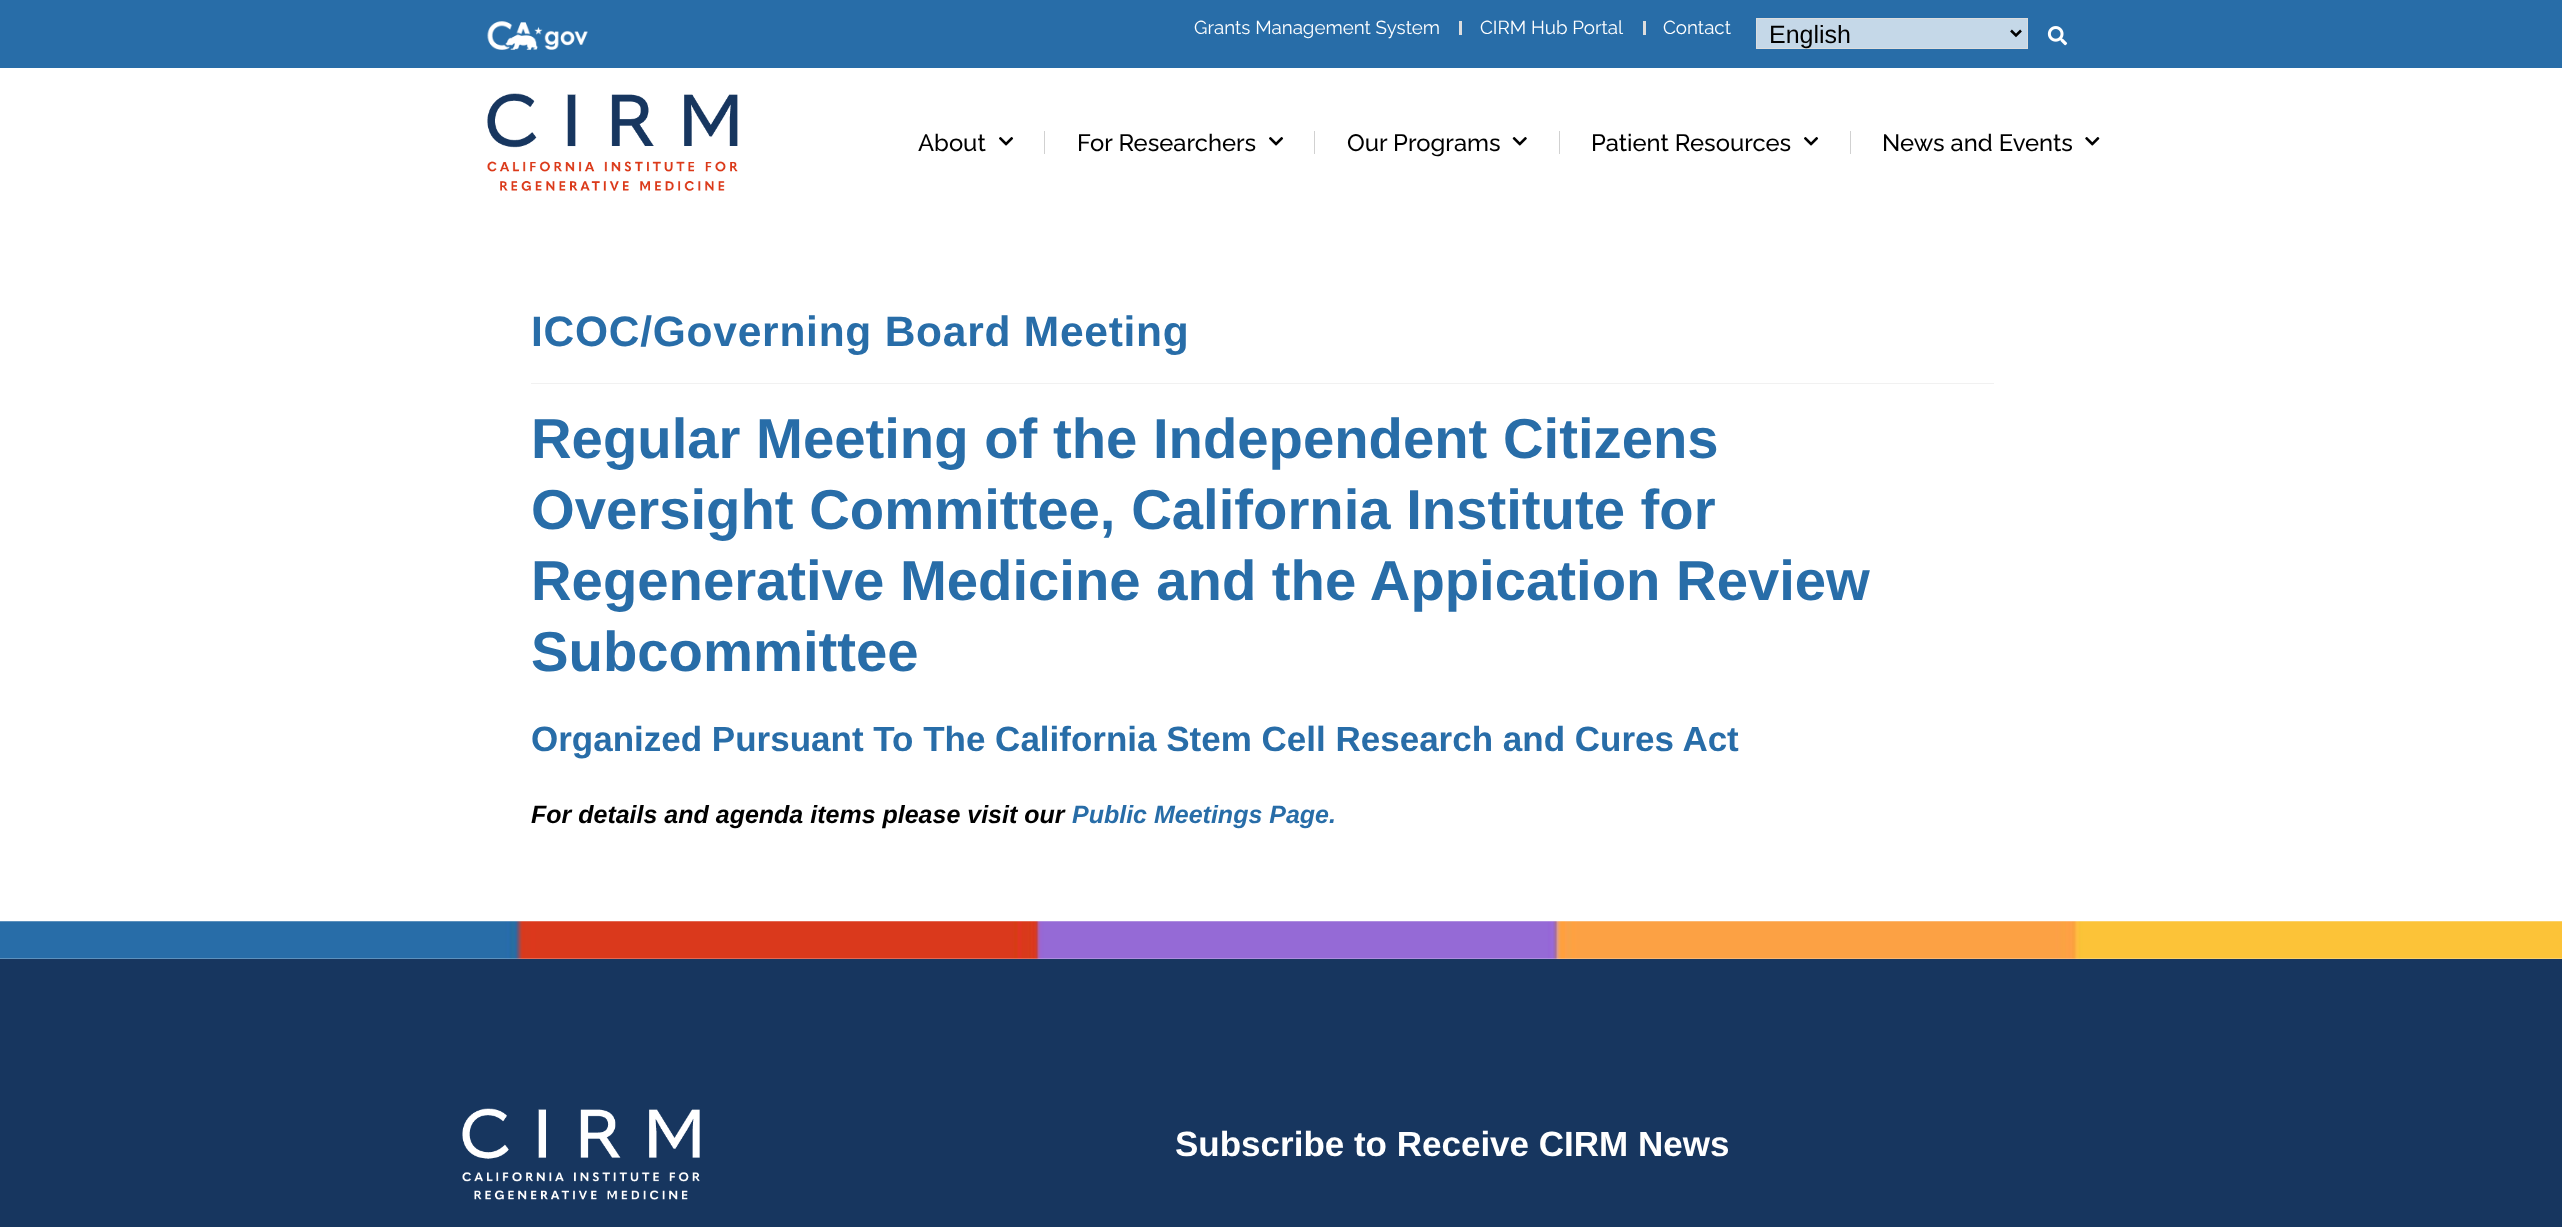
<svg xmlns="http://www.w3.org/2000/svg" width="2562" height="1227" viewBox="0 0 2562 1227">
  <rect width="100%" height="100%" fill="rgb(255,255,255)"/>
  <rect x="0" y="0" width="2562" height="68" fill="rgb(40,109,168)"/>
  <image x="487" y="21" width="101" height="29" href="pic1.png"/>
  <text x="1194" y="34" font-family="Raleway" font-size="18.75" fill="rgb(255,255,255)">Grants Management System</text>
  <rect x="1459" y="21" width="3" height="14" fill="rgb(221,221,221)"/>
  <text x="1480" y="34" font-family="Raleway" font-size="18.75" fill="rgb(255,255,255)">CIRM Hub Portal</text>
  <rect x="1643" y="21" width="3" height="14" fill="rgb(221,221,221)"/>
  <text x="1663" y="34" font-family="Raleway" font-size="18.75" fill="rgb(255,255,255)">Contact</text>
  <rect x="1756.5" y="18.5" width="271" height="30" fill="rgb(197,216,232)" stroke="rgb(221,221,221)"/>
  <path d="M2011 30.5L2016 35.5L2021 30.5" fill="none" stroke="rgb(0,0,0)" stroke-width="2.5"/>
  <text x="1769" y="43" font-family="Liberation Sans" font-size="25" fill="rgb(0,0,0)">English</text>
  <image x="2047" y="26" width="21" height="20" href="pic2.png"/>
  <image x="487" y="93" width="251" height="99" href="pic3.png"/>
  <text x="918" y="151" font-family="Raleway" font-size="23.75" font-weight="500" fill="rgb(0,0,0)">About</text>
  <image x="999" y="137" width="15" height="9" href="pic4.png"/>
  <rect x="1044" y="131" width="1" height="23" fill="rgb(209,209,209)"/>
  <text x="1077" y="151" font-family="Raleway" font-size="23.75" font-weight="500" fill="rgb(0,0,0)">For Researchers</text>
  <image x="1269" y="137" width="15" height="9" href="pic4.png"/>
  <rect x="1314" y="131" width="1" height="23" fill="rgb(209,209,209)"/>
  <text x="1347" y="151" font-family="Raleway" font-size="23.75" font-weight="500" fill="rgb(0,0,0)">Our Programs</text>
  <image x="1512" y="137" width="15" height="9" href="pic5.png"/>
  <rect x="1559" y="131" width="1" height="23" fill="rgb(209,209,209)"/>
  <text x="1591" y="151" font-family="Raleway" font-size="23.75" font-weight="500" fill="rgb(0,0,0)">Patient Resources</text>
  <image x="1804" y="137" width="15" height="9" href="pic4.png"/>
  <rect x="1850" y="131" width="1" height="23" fill="rgb(209,209,209)"/>
  <text x="1882" y="151" font-family="Raleway" font-size="23.75" font-weight="500" fill="rgb(0,0,0)">News and Events</text>
  <image x="2085" y="137" width="15" height="9" href="pic6.png"/>
  <rect x="531" y="383" width="1463" height="1" fill="rgb(241,241,241)"/>
  <text x="531" y="346" font-family="Liberation Sans" font-size="42.5" font-weight="bold" letter-spacing="0.75" fill="rgb(40,109,168)">ICOC/Governing Board Meeting</text>
  <g font-family="Liberation Sans" font-size="56.25" font-weight="bold" fill="rgb(40,109,168)">
    <text>
      <tspan x="531" y="458">Regular Meeting of the Independent Citizens</tspan>
      <tspan x="531" y="529">Oversight Committee, California Institute for</tspan>
      <tspan x="531" y="600">Regenerative Medicine and the Appication Review</tspan>
      <tspan x="531" y="671">Subcommittee</tspan>
    </text>
  </g>
  <text x="531" y="751" font-family="Liberation Sans" font-size="35" font-weight="bold" fill="rgb(40,109,168)">Organized Pursuant To The California Stem Cell Research and Cures Act</text>
  <text x="531" y="823" font-family="Liberation Sans" font-size="25" font-weight="bold" font-style="italic" fill="rgb(0,0,0)">For details and agenda items please visit our</text>
  <text x="1072" y="823" font-family="Liberation Sans" font-size="25" font-weight="bold" font-style="italic" fill="rgb(40,109,168)">Public Meetings Page.</text>
  <image x="0" y="921" width="2562" height="38" href="pic7.png"/>
  <rect x="0" y="959" width="2562" height="268" fill="rgb(23,54,95)"/>
  <image x="462" y="1108" width="238" height="92" href="pic8.png"/>
  <text x="1175" y="1156" font-family="Liberation Sans" font-size="35" font-weight="bold" fill="rgb(255,255,255)">Subscribe to Receive CIRM News</text>
</svg>
